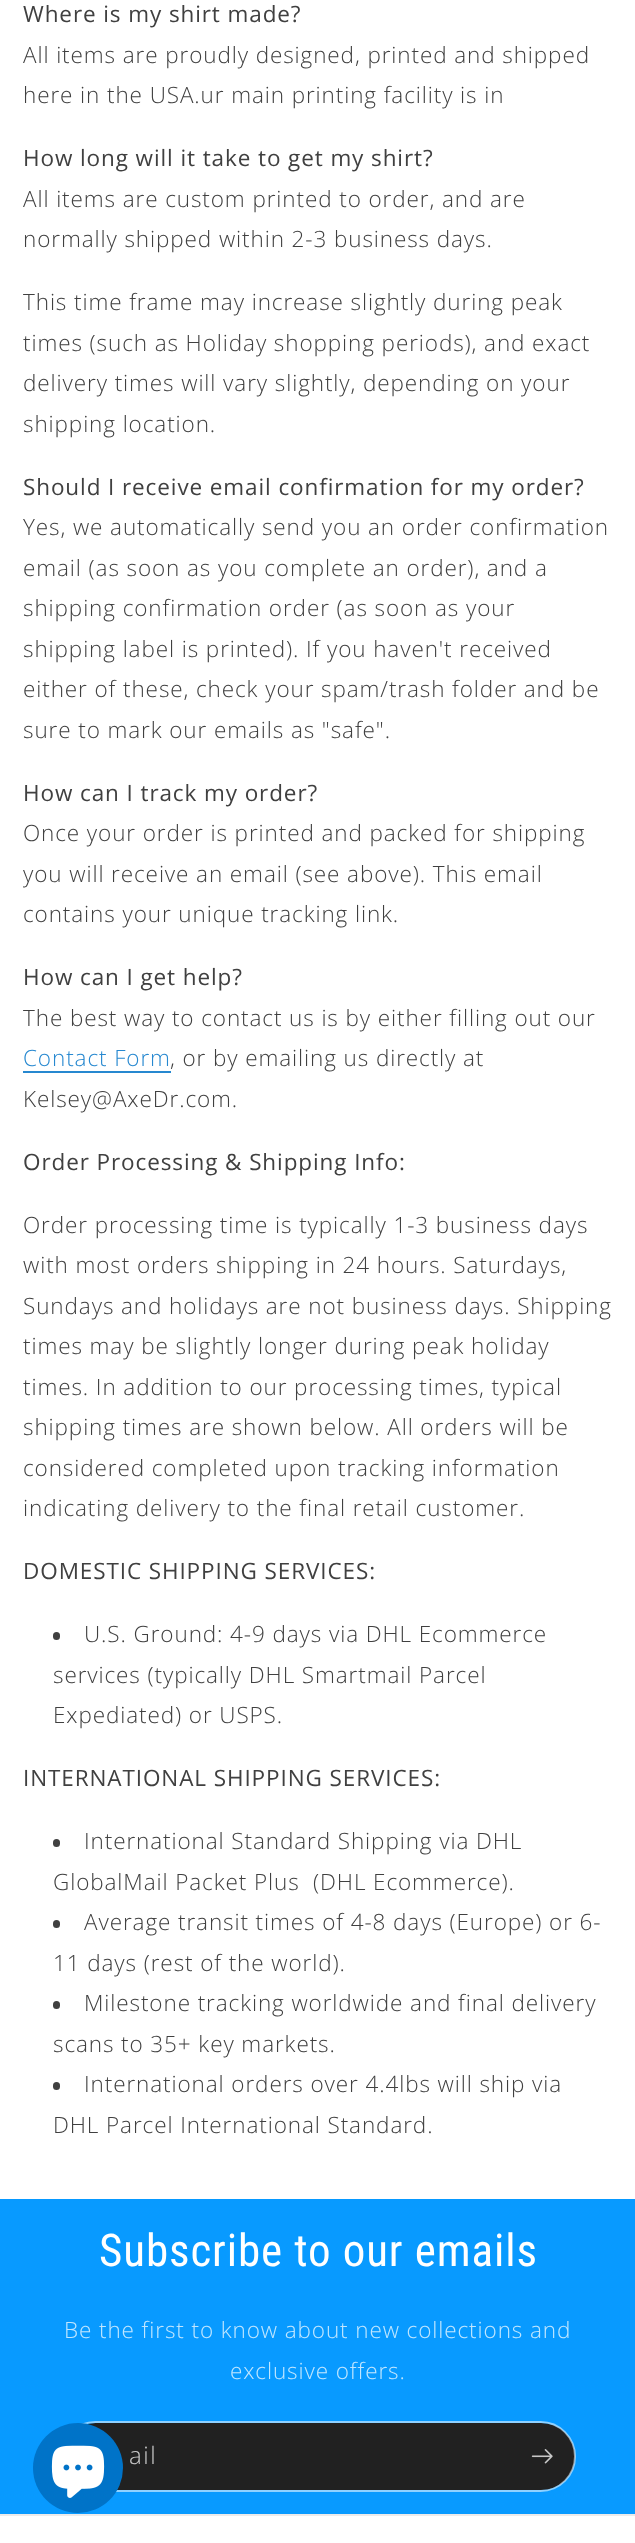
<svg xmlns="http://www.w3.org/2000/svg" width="635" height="2543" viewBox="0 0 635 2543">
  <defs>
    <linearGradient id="g1" gradientUnits="userSpaceOnUse" x1="296" y1="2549" x2="340" y2="-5.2"><stop offset="0.35" stop-color="rgb(8,154,255)"/><stop offset="0.64" stop-color="rgb(20,120,255)"/><stop offset="0.91" stop-color="rgb(33,33,33)"/></linearGradient>
  </defs>
  <rect width="100%" height="100%" fill="rgb(255,255,255)"/>
  <text x="23" y="22" font-family="Open Sans" font-size="22.5" letter-spacing="0.9" fill="rgb(64,64,64)">Where is my shirt made?</text>
  <g font-family="Open Sans" font-size="22.5" font-weight="300" letter-spacing="0.9" fill="rgb(64,64,64)">
    <text>
      <tspan x="23" y="63">All items are proudly designed, printed and shipped</tspan>
      <tspan x="23" y="103">here in the USA.ur main printing facility is in</tspan>
    </text>
  </g>
  <text x="23" y="166" font-family="Open Sans" font-size="22.5" letter-spacing="0.9" fill="rgb(64,64,64)">How long will it take to get my shirt?</text>
  <g font-family="Open Sans" font-size="22.5" font-weight="300" letter-spacing="0.9" fill="rgb(64,64,64)">
    <text>
      <tspan x="23" y="207">All items are custom printed to order, and are</tspan>
      <tspan x="23" y="247">normally shipped within 2-3 business days.</tspan>
    </text>
    <text>
      <tspan x="23" y="310">This time frame may increase slightly during peak</tspan>
      <tspan x="23" y="351">times (such as Holiday shopping periods), and exact</tspan>
      <tspan x="23" y="391">delivery times will vary slightly, depending on your</tspan>
      <tspan x="23" y="432">shipping location.</tspan>
    </text>
  </g>
  <text x="23" y="495" font-family="Open Sans" font-size="22.5" letter-spacing="0.9" fill="rgb(64,64,64)">Should I receive email confirmation for my order?</text>
  <g font-family="Open Sans" font-size="22.5" font-weight="300" letter-spacing="0.9" fill="rgb(64,64,64)">
    <text>
      <tspan x="23" y="535">Yes, we automatically send you an order confirmation</tspan>
      <tspan x="23" y="576">email (as soon as you complete an order), and a</tspan>
      <tspan x="23" y="616">shipping confirmation order (as soon as your</tspan>
      <tspan x="23" y="657">shipping label is printed). If you haven't received</tspan>
      <tspan x="23" y="697">either of these, check your spam/trash folder and be</tspan>
      <tspan x="23" y="738">sure to mark our emails as "safe".</tspan>
    </text>
  </g>
  <text x="23" y="801" font-family="Open Sans" font-size="22.5" letter-spacing="0.9" fill="rgb(64,64,64)">How can I track my order?</text>
  <g font-family="Open Sans" font-size="22.5" font-weight="300" letter-spacing="0.9" fill="rgb(64,64,64)">
    <text>
      <tspan x="23" y="841">Once your order is printed and packed for shipping</tspan>
      <tspan x="23" y="882">you will receive an email (see above). This email</tspan>
      <tspan x="23" y="922">contains your unique tracking link.</tspan>
    </text>
  </g>
  <text x="23" y="985" font-family="Open Sans" font-size="22.5" letter-spacing="0.9" fill="rgb(64,64,64)">How can I get help?</text>
  <text x="23" y="1026" font-family="Open Sans" font-size="22.5" font-weight="300" letter-spacing="0.9" fill="rgb(64,64,64)">The best way to contact us is by either filling out our</text>
  <text x="23" y="1066" font-family="Open Sans" font-size="22.5" font-weight="300" letter-spacing="0.9" fill="rgb(38,136,208)">Contact Form</text>
  <rect x="23" y="1071" width="148" height="2" fill="rgb(38,136,208)"/>
  <g font-family="Open Sans" font-size="22.5" font-weight="300" letter-spacing="0.9" fill="rgb(64,64,64)">
    <text x="170" y="1066">, or by emailing us directly at</text>
    <text x="23" y="1107">Kelsey@AxeDr.com.</text>
  </g>
  <text x="23" y="1170" font-family="Open Sans" font-size="22.5" letter-spacing="0.9" fill="rgb(64,64,64)">Order Processing &amp; Shipping Info:</text>
  <g font-family="Open Sans" font-size="22.5" font-weight="300" letter-spacing="0.9" fill="rgb(64,64,64)">
    <text>
      <tspan x="23" y="1233">Order processing time is typically 1-3 business days</tspan>
      <tspan x="23" y="1273">with most orders shipping in 24 hours. Saturdays,</tspan>
      <tspan x="23" y="1314">Sundays and holidays are not business days. Shipping</tspan>
      <tspan x="23" y="1354">times may be slightly longer during peak holiday</tspan>
      <tspan x="23" y="1395">times. In addition to our processing times, typical</tspan>
      <tspan x="23" y="1435">shipping times are shown below. All orders will be</tspan>
      <tspan x="23" y="1476">considered completed upon tracking information</tspan>
      <tspan x="23" y="1516">indicating delivery to the final retail customer.</tspan>
    </text>
  </g>
  <text x="23" y="1579" font-family="Open Sans" font-size="22.5" letter-spacing="0.9" fill="rgb(64,64,64)">DOMESTIC SHIPPING SERVICES:</text>
  <rect x="53" y="1632" width="7" height="8" rx="3.5" fill="rgb(64,64,64)"/>
  <g font-family="Open Sans" font-size="22.5" font-weight="300" letter-spacing="0.9" fill="rgb(64,64,64)">
    <text x="84" y="1642">U.S. Ground: 4-9 days via DHL Ecommerce</text>
    <text>
      <tspan x="53" y="1683">services (typically DHL Smartmail Parcel</tspan>
      <tspan x="53" y="1723">Expediated) or USPS.</tspan>
    </text>
  </g>
  <text x="23" y="1786" font-family="Open Sans" font-size="22.5" letter-spacing="0.9" fill="rgb(64,64,64)">INTERNATIONAL SHIPPING SERVICES:</text>
  <rect x="53" y="1839" width="7" height="8" rx="3.5" fill="rgb(64,64,64)"/>
  <g font-family="Open Sans" font-size="22.5" font-weight="300" letter-spacing="0.9" fill="rgb(64,64,64)">
    <text x="84" y="1849">International Standard Shipping via DHL</text>
    <text x="53" y="1890" xml:space="preserve">GlobalMail Packet Plus  (DHL Ecommerce).</text>
  </g>
  <rect x="53" y="1920" width="7" height="8" rx="3.5" fill="rgb(64,64,64)"/>
  <g font-family="Open Sans" font-size="22.5" font-weight="300" letter-spacing="0.9" fill="rgb(64,64,64)">
    <text x="84" y="1930">Average transit times of 4-8 days (Europe) or 6-</text>
    <text x="53" y="1971">11 days (rest of the world).</text>
  </g>
  <rect x="53" y="2001" width="7" height="8" rx="3.5" fill="rgb(64,64,64)"/>
  <g font-family="Open Sans" font-size="22.5" font-weight="300" letter-spacing="0.9" fill="rgb(64,64,64)">
    <text x="84" y="2011">Milestone tracking worldwide and final delivery</text>
    <text x="53" y="2052">scans to 35+ key markets.</text>
  </g>
  <rect x="53" y="2082" width="7" height="8" rx="3.5" fill="rgb(64,64,64)"/>
  <g font-family="Open Sans" font-size="22.5" font-weight="300" letter-spacing="0.9" fill="rgb(64,64,64)">
    <text x="84" y="2092">International orders over 4.4lbs will ship via</text>
    <text x="53" y="2133">DHL Parcel International Standard.</text>
  </g>
  <rect x="0" y="2199" width="635" height="315" fill="url(#g1)"/>
  <text x="99" y="2266" font-family="Roboto Condensed" font-size="45" letter-spacing="0.9" fill="rgb(255,255,255)">Subscribe to our emails</text>
  <g font-family="Open Sans" font-size="22.5" font-weight="300" letter-spacing="0.9" fill="rgb(193,230,255)">
    <text x="64" y="2338">Be the first to know about new collections and</text>
    <text x="230" y="2379">exclusive offers.</text>
  </g>
  <rect x="62" y="2423" width="513" height="67" rx="33.5" fill="rgb(33,33,33)"/>
  <rect x="61" y="2422" width="514" height="69" rx="34.5" fill="none" stroke="rgba(255,255,255,0.55)" stroke-width="2"/>
  <text x="129" y="2464" font-family="Open Sans" font-size="24" font-weight="300" letter-spacing="1.5" fill="rgb(200,200,200)">ail</text>
  <image x="531" y="2449" width="22" height="15" href="pic1.png"/>
  <circle cx="78" cy="2468" r="45" fill="rgb(0,115,200)"/>
  <image x="51" y="2445" width="54" height="53" href="pic2.png"/>
  <rect x="0" y="2514" width="635" height="2" fill="rgb(235,235,235)"/>
</svg>
